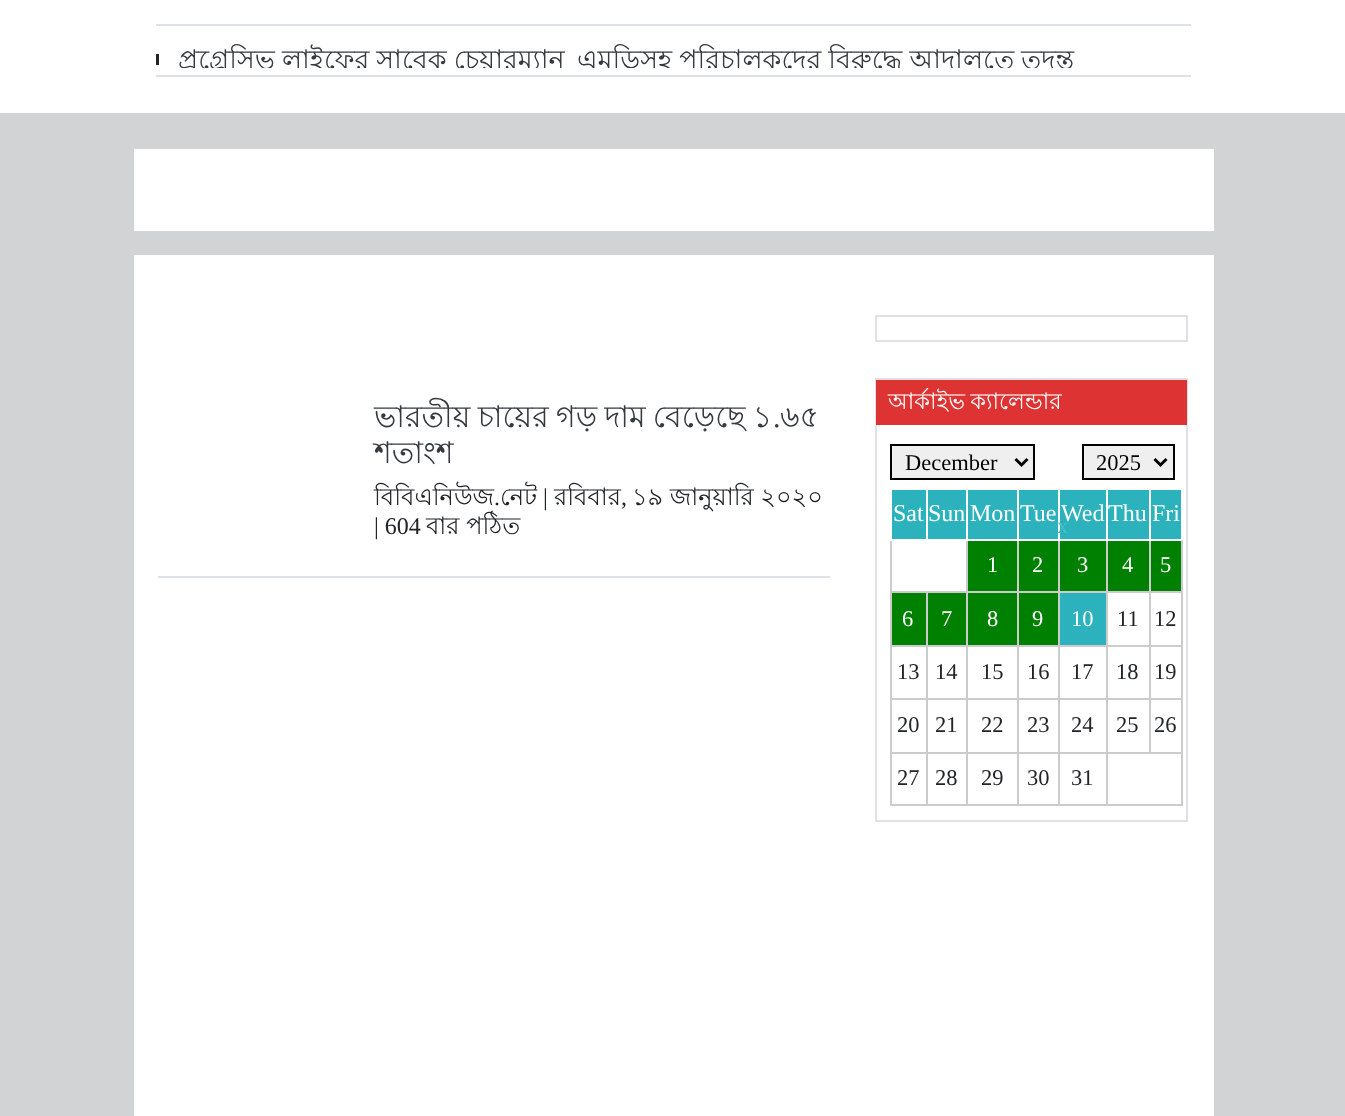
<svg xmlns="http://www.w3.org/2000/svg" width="1345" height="1116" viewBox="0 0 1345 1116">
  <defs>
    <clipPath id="clip1"><rect x="156" y="38" width="1035" height="30"/></clipPath>
  </defs>
  <rect width="100%" height="100%" fill="rgb(209,211,212)"/>
  <rect x="0" y="0" width="1345" height="113" fill="rgb(255,255,255)"/>
  <rect x="156" y="24" width="1035" height="2" fill="rgb(222,226,230)"/>
  <rect x="156" y="75" width="1035" height="2" fill="rgb(222,226,230)"/>
  <rect x="156" y="54" width="3" height="11" fill="rgb(33,37,41)"/>
  <g clip-path="url(#clip1)">
    <g font-family="Lohit Bengali" font-size="27" fill="rgb(52,58,64)">
      <text x="178" y="69" word-spacing="-0.5">প্রগ্রেসিভ লাইফের সাবেক চেয়ারম্যান</text>
      <text x="577" y="69" word-spacing="-0.5">এমডিসহ পরিচালকদের বিরুদ্ধে আদালতে তদন্ত</text>
    </g>
  </g>
  <rect x="134" y="149" width="1080" height="82" fill="rgb(255,255,255)"/>
  <rect x="134" y="255" width="1080" height="861" fill="rgb(255,255,255)"/>
  <rect x="158" y="576" width="672" height="2" fill="rgb(222,226,230)"/>
  <text x="374" y="427" word-spacing="-1" font-family="Lohit Bengali" font-size="30" fill="rgb(52,58,64)">ভারতীয় চায়ের গড় দাম বেড়েছে ১</text>
  <text x="773" y="427" font-family="Liberation Serif" font-size="30" fill="rgb(52,58,64)">.</text>
  <g font-family="Lohit Bengali" font-size="30" fill="rgb(52,58,64)">
    <text x="780" y="427">৬৫</text>
    <text x="374" y="463">শতাংশ</text>
  </g>
  <text x="374" y="505" font-family="Lohit Bengali" font-size="24" fill="rgb(33,37,41)">বিবিএনিউজ</text>
  <text x="494" y="505" font-family="Liberation Serif" font-size="24" fill="rgb(33,37,41)">.</text>
  <text x="500" y="505" font-family="Lohit Bengali" font-size="24" fill="rgb(33,37,41)">নেট</text>
  <text x="543" y="505" font-family="Liberation Serif" font-size="24" fill="rgb(33,37,41)">|</text>
  <text x="554" y="505" font-family="Lohit Bengali" font-size="24" fill="rgb(33,37,41)">রবিবার</text>
  <text x="621" y="505" font-family="Liberation Serif" font-size="24" fill="rgb(33,37,41)">,</text>
  <text x="632" y="505" font-family="Lohit Bengali" font-size="24" fill="rgb(33,37,41)">১৯ জানুয়ারি ২০২০</text>
  <text x="374" y="534" font-family="Liberation Serif" font-size="24" fill="rgb(33,37,41)">| 604</text>
  <text x="426" y="534" font-family="Lohit Bengali" font-size="24" fill="rgb(33,37,41)">বার পঠিত</text>
  <rect x="876" y="316" width="311" height="25" fill="none" stroke="rgb(222,226,230)" stroke-width="2"/>
  <rect x="876" y="379" width="311" height="442" fill="none" stroke="rgb(222,226,230)" stroke-width="2"/>
  <rect x="876" y="380" width="311" height="45" fill="rgb(221,51,51)"/>
  <text x="888" y="409" word-spacing="-1" font-family="Lohit Bengali" font-size="22.5" fill="rgb(255,255,255)">আর্কাইভ ক্যালেন্ডার</text>
  <rect x="891" y="445" width="143" height="34" fill="rgb(239,239,239)" stroke="rgb(0,0,0)" stroke-width="2"/>
  <path d="M1015.5 459L1021.5 465L1027.5 459" fill="none" stroke="rgb(0,0,0)" stroke-width="3"/>
  <text x="905" y="470" font-family="Liberation Serif" font-size="22.5" fill="rgb(0,0,0)">December</text>
  <rect x="1083" y="445" width="91" height="34" fill="rgb(239,239,239)" stroke="rgb(0,0,0)" stroke-width="2"/>
  <path d="M1154.5 459L1160.5 465L1166.5 459" fill="none" stroke="rgb(0,0,0)" stroke-width="3"/>
  <text x="1096" y="470" font-family="Liberation Serif" font-size="22.5" fill="rgb(0,0,0)">2025</text>
  <rect x="892" y="490" width="34" height="49" fill="rgb(44,178,188)"/>
  <rect x="1149" y="591" width="33" height="2" fill="rgb(204,204,204)"/>
  <rect x="1149" y="645" width="33" height="2" fill="rgb(204,204,204)"/>
  <rect x="1149" y="698" width="33" height="2" fill="rgb(204,204,204)"/>
  <rect x="1106" y="752" width="76" height="2" fill="rgb(204,204,204)"/>
  <rect x="1149" y="698" width="2" height="55" fill="rgb(204,204,204)"/>
  <rect x="1106" y="698" width="45" height="2" fill="rgb(204,204,204)"/>
  <rect x="1149" y="645" width="2" height="54" fill="rgb(204,204,204)"/>
  <rect x="1106" y="645" width="45" height="2" fill="rgb(204,204,204)"/>
  <rect x="1149" y="591" width="2" height="56" fill="rgb(204,204,204)"/>
  <rect x="1106" y="591" width="45" height="2" fill="rgb(204,204,204)"/>
  <rect x="1181" y="752" width="2" height="54" fill="rgb(204,204,204)"/>
  <rect x="1106" y="804" width="76" height="2" fill="rgb(204,204,204)"/>
  <rect x="1106" y="752" width="2" height="54" fill="rgb(204,204,204)"/>
  <rect x="1058" y="752" width="49" height="2" fill="rgb(204,204,204)"/>
  <rect x="1106" y="698" width="2" height="55" fill="rgb(204,204,204)"/>
  <rect x="1058" y="698" width="49" height="2" fill="rgb(204,204,204)"/>
  <rect x="1106" y="645" width="2" height="54" fill="rgb(204,204,204)"/>
  <rect x="1058" y="645" width="49" height="2" fill="rgb(204,204,204)"/>
  <rect x="1106" y="591" width="2" height="56" fill="rgb(204,204,204)"/>
  <rect x="1058" y="591" width="49" height="2" fill="rgb(204,204,204)"/>
  <rect x="1058" y="804" width="49" height="2" fill="rgb(204,204,204)"/>
  <rect x="1058" y="752" width="2" height="54" fill="rgb(204,204,204)"/>
  <rect x="1017" y="752" width="42" height="2" fill="rgb(204,204,204)"/>
  <rect x="1058" y="698" width="2" height="55" fill="rgb(204,204,204)"/>
  <rect x="1017" y="698" width="42" height="2" fill="rgb(204,204,204)"/>
  <rect x="1058" y="645" width="2" height="54" fill="rgb(204,204,204)"/>
  <rect x="1017" y="645" width="42" height="2" fill="rgb(204,204,204)"/>
  <rect x="1058" y="591" width="2" height="56" fill="rgb(204,204,204)"/>
  <rect x="1017" y="591" width="42" height="2" fill="rgb(204,204,204)"/>
  <rect x="1017" y="804" width="42" height="2" fill="rgb(204,204,204)"/>
  <rect x="1017" y="752" width="2" height="54" fill="rgb(204,204,204)"/>
  <rect x="966" y="752" width="53" height="2" fill="rgb(204,204,204)"/>
  <rect x="1017" y="698" width="2" height="55" fill="rgb(204,204,204)"/>
  <rect x="966" y="698" width="53" height="2" fill="rgb(204,204,204)"/>
  <rect x="1017" y="645" width="2" height="54" fill="rgb(204,204,204)"/>
  <rect x="966" y="645" width="53" height="2" fill="rgb(204,204,204)"/>
  <rect x="1017" y="591" width="2" height="56" fill="rgb(204,204,204)"/>
  <rect x="966" y="591" width="53" height="2" fill="rgb(204,204,204)"/>
  <rect x="966" y="804" width="53" height="2" fill="rgb(204,204,204)"/>
  <rect x="966" y="752" width="2" height="54" fill="rgb(204,204,204)"/>
  <rect x="926" y="752" width="42" height="2" fill="rgb(204,204,204)"/>
  <rect x="966" y="698" width="2" height="55" fill="rgb(204,204,204)"/>
  <rect x="926" y="698" width="42" height="2" fill="rgb(204,204,204)"/>
  <rect x="966" y="645" width="2" height="54" fill="rgb(204,204,204)"/>
  <rect x="926" y="645" width="42" height="2" fill="rgb(204,204,204)"/>
  <rect x="966" y="591" width="2" height="56" fill="rgb(204,204,204)"/>
  <rect x="926" y="591" width="42" height="2" fill="rgb(204,204,204)"/>
  <rect x="926" y="804" width="42" height="2" fill="rgb(204,204,204)"/>
  <rect x="926" y="752" width="2" height="54" fill="rgb(204,204,204)"/>
  <rect x="890" y="752" width="37" height="2" fill="rgb(204,204,204)"/>
  <rect x="926" y="698" width="2" height="55" fill="rgb(204,204,204)"/>
  <rect x="890" y="698" width="37" height="2" fill="rgb(204,204,204)"/>
  <rect x="926" y="645" width="2" height="54" fill="rgb(204,204,204)"/>
  <rect x="890" y="645" width="37" height="2" fill="rgb(204,204,204)"/>
  <rect x="926" y="591" width="2" height="56" fill="rgb(204,204,204)"/>
  <rect x="890" y="591" width="37" height="2" fill="rgb(204,204,204)"/>
  <rect x="890" y="804" width="37" height="2" fill="rgb(204,204,204)"/>
  <rect x="890" y="752" width="2" height="54" fill="rgb(204,204,204)"/>
  <rect x="890" y="698" width="2" height="55" fill="rgb(204,204,204)"/>
  <rect x="890" y="645" width="2" height="54" fill="rgb(204,204,204)"/>
  <rect x="890" y="539" width="2" height="108" fill="rgb(204,204,204)"/>
  <rect x="890" y="539" width="2" height="2" fill="rgb(255,255,255)"/>
  <text x="893" y="521" font-family="Liberation Serif" font-size="24" fill="rgb(255,255,255)">Sat</text>
  <rect x="928" y="490" width="38" height="49" fill="rgb(44,178,188)"/>
  <text x="928" y="521" font-family="Liberation Serif" font-size="24" fill="rgb(255,255,255)">Sun</text>
  <rect x="968" y="490" width="49" height="49" fill="rgb(44,178,188)"/>
  <rect x="966" y="539" width="2" height="54" fill="rgb(204,204,204)"/>
  <rect x="966" y="539" width="2" height="2" fill="rgb(255,255,255)"/>
  <text x="970" y="521" font-family="Liberation Serif" font-size="24" fill="rgb(255,255,255)">Mon</text>
  <rect x="1019" y="490" width="39" height="49" fill="rgb(44,178,188)"/>
  <rect x="1017" y="539" width="2" height="54" fill="rgb(204,204,204)"/>
  <rect x="1017" y="539" width="2" height="2" fill="rgb(255,255,255)"/>
  <text x="1020" y="521" font-family="Liberation Serif" font-size="24" fill="rgb(255,255,255)">Tue</text>
  <rect x="1060" y="490" width="46" height="49" fill="rgb(44,178,188)"/>
  <rect x="1058" y="539" width="2" height="54" fill="rgb(204,204,204)"/>
  <rect x="1058" y="539" width="2" height="2" fill="rgb(255,255,255)"/>
  <text x="1061" y="521" font-family="Liberation Serif" font-size="24" fill="rgb(255,255,255)">Wed</text>
  <rect x="1108" y="490" width="41" height="49" fill="rgb(44,178,188)"/>
  <rect x="1106" y="539" width="2" height="54" fill="rgb(204,204,204)"/>
  <rect x="1106" y="539" width="2" height="2" fill="rgb(255,255,255)"/>
  <text x="1108" y="521" font-family="Liberation Serif" font-size="24" fill="rgb(255,255,255)">Thu</text>
  <rect x="1151" y="490" width="30" height="49" fill="rgb(44,178,188)"/>
  <rect x="1181" y="698" width="2" height="55" fill="rgb(204,204,204)"/>
  <rect x="1181" y="645" width="2" height="54" fill="rgb(204,204,204)"/>
  <rect x="1181" y="539" width="2" height="108" fill="rgb(204,204,204)"/>
  <rect x="1181" y="539" width="2" height="1" fill="rgb(255,255,255)"/>
  <rect x="1149" y="539" width="2" height="54" fill="rgb(204,204,204)"/>
  <rect x="1149" y="539" width="33" height="2" fill="rgb(255,255,255)"/>
  <text x="1152" y="521" font-family="Liberation Serif" font-size="24" fill="rgb(255,255,255)">Fri</text>
  <rect x="968" y="541" width="49" height="50" fill="rgb(0,128,0)"/>
  <text x="987" y="572" font-family="Liberation Serif" font-size="22.5" fill="rgb(255,255,255)">1</text>
  <rect x="1019" y="541" width="39" height="50" fill="rgb(0,128,0)"/>
  <text x="1032" y="572" font-family="Liberation Serif" font-size="22.5" fill="rgb(255,255,255)">2</text>
  <rect x="1060" y="541" width="46" height="50" fill="rgb(0,128,0)"/>
  <text x="1077" y="572" font-family="Liberation Serif" font-size="22.5" fill="rgb(255,255,255)">3</text>
  <rect x="1108" y="541" width="41" height="50" fill="rgb(0,128,0)"/>
  <text x="1122" y="572" font-family="Liberation Serif" font-size="22.5" fill="rgb(255,255,255)">4</text>
  <rect x="1151" y="541" width="30" height="50" fill="rgb(0,128,0)"/>
  <text x="1160" y="572" font-family="Liberation Serif" font-size="22.5" fill="rgb(255,255,255)">5</text>
  <rect x="892" y="593" width="34" height="52" fill="rgb(0,128,0)"/>
  <text x="902" y="626" font-family="Liberation Serif" font-size="22.5" fill="rgb(255,255,255)">6</text>
  <rect x="928" y="593" width="38" height="52" fill="rgb(0,128,0)"/>
  <text x="941" y="626" font-family="Liberation Serif" font-size="22.5" fill="rgb(255,255,255)">7</text>
  <rect x="968" y="593" width="49" height="52" fill="rgb(0,128,0)"/>
  <text x="987" y="626" font-family="Liberation Serif" font-size="22.5" fill="rgb(255,255,255)">8</text>
  <rect x="1019" y="593" width="39" height="52" fill="rgb(0,128,0)"/>
  <text x="1032" y="626" font-family="Liberation Serif" font-size="22.5" fill="rgb(255,255,255)">9</text>
  <rect x="1060" y="593" width="46" height="52" fill="rgb(44,178,188)"/>
  <text x="1071" y="626" font-family="Liberation Serif" font-size="22.5" fill="rgb(255,255,255)">10</text>
  <g font-family="Liberation Serif" font-size="22.5" fill="rgb(33,37,41)">
    <text x="1117" y="626">11</text>
    <text x="1154" y="626">12</text>
    <text x="897" y="679">13</text>
    <text x="935" y="679">14</text>
    <text x="981" y="679">15</text>
    <text x="1027" y="679">16</text>
    <text x="1071" y="679">17</text>
    <text x="1116" y="679">18</text>
    <text x="1154" y="679">19</text>
    <text x="897" y="732">20</text>
    <text x="935" y="732">21</text>
    <text x="981" y="732">22</text>
    <text x="1027" y="732">23</text>
    <text x="1071" y="732">24</text>
    <text x="1116" y="732">25</text>
    <text x="1154" y="732">26</text>
    <text x="897" y="785">27</text>
    <text x="935" y="785">28</text>
    <text x="981" y="785">29</text>
    <text x="1027" y="785">30</text>
    <text x="1071" y="785">31</text>
  </g>
  <text x="1057" y="533" font-family="Liberation Serif" font-size="22.5" fill="rgb(73,189,197)">x</text>
</svg>
